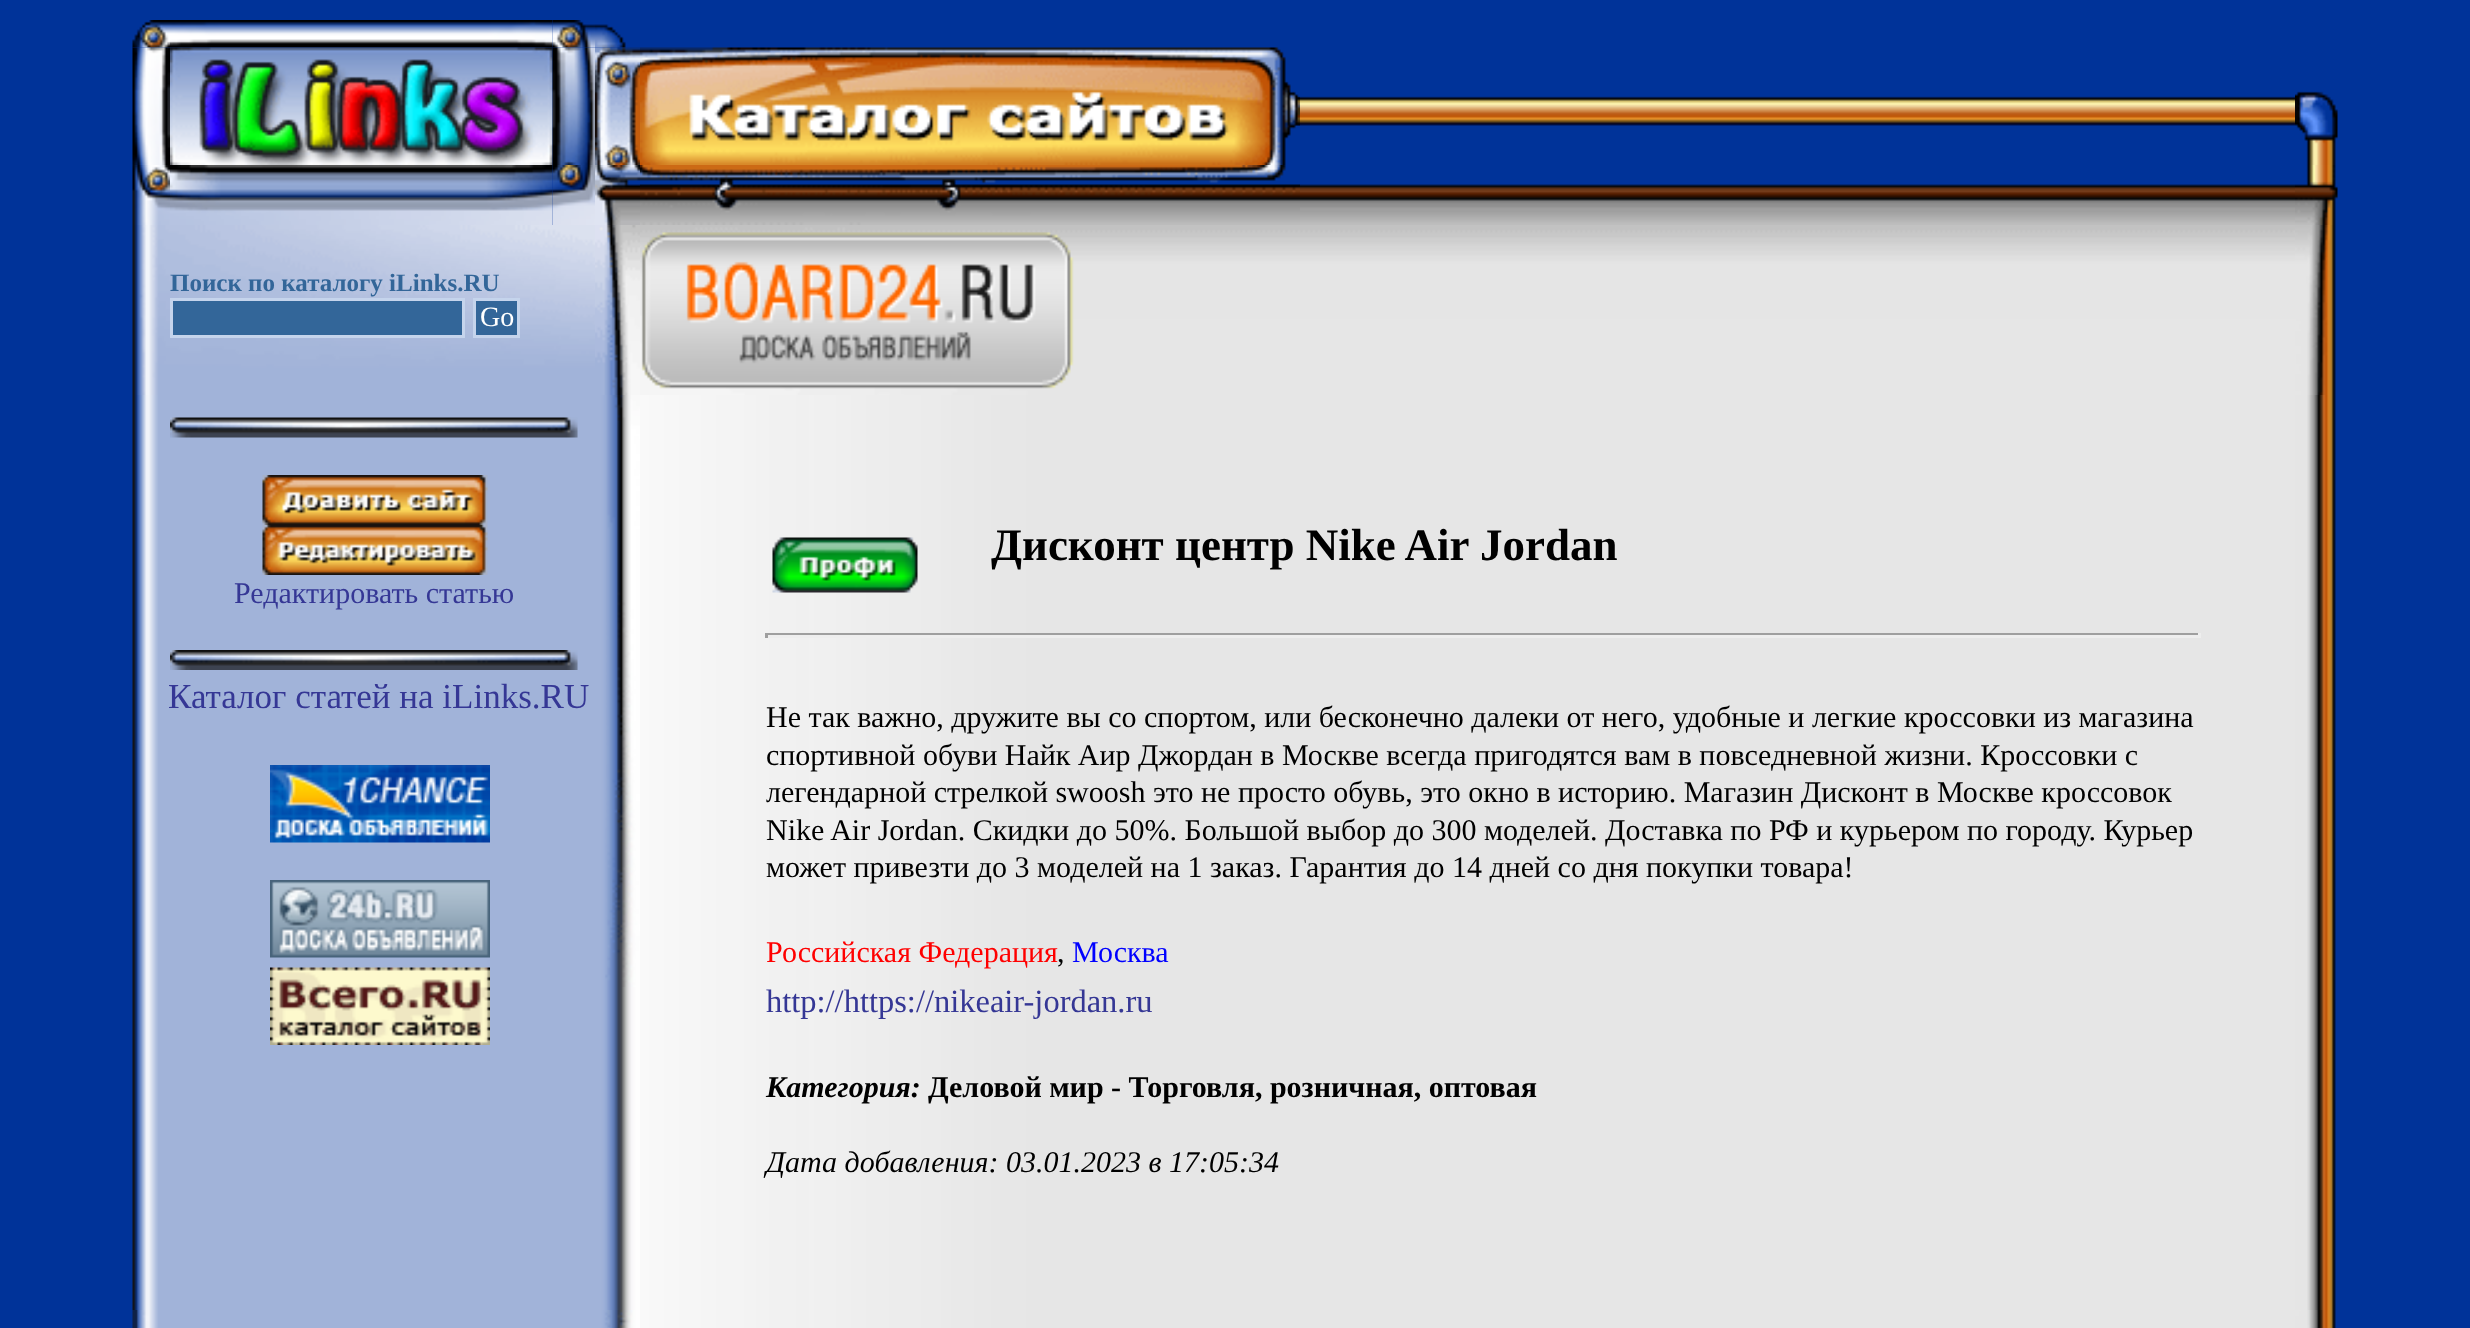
<svg xmlns="http://www.w3.org/2000/svg" width="2470" height="1328" viewBox="0 0 2470 1328">
  <rect width="100%" height="100%" fill="rgb(0,51,153)"/>
  <image x="132" y="20" width="38" height="28" href="pic1.png"/>
  <image x="170" y="20" width="383" height="28" href="pic2.png"/>
  <image x="552" y="20" width="43" height="28" href="pic3.png"/>
  <image x="595" y="24" width="31" height="24" href="pic4.png"/>
  <image x="132" y="47" width="38" height="118" href="pic5.png"/>
  <image x="170" y="47" width="383" height="118" href="pic6.png"/>
  <image x="552" y="47" width="43" height="118" href="pic7.png"/>
  <image x="595" y="47" width="45" height="118" href="pic8.png"/>
  <image x="1294" y="96" width="156" height="30" href="pic9.png"/>
  <image x="640" y="47" width="660" height="118" href="pic10.png"/>
  <image x="1450" y="96" width="845" height="30" href="pic11.png"/>
  <image x="2295" y="91" width="43" height="74" href="pic12.png"/>
  <image x="132" y="165" width="38" height="60" href="pic13.png"/>
  <image x="170" y="165" width="383" height="60" href="pic14.png"/>
  <image x="552" y="165" width="43" height="60" href="pic15.png"/>
  <image x="595" y="165" width="45" height="60" href="pic16.png"/>
  <image x="640" y="184" width="810" height="41" href="pic17.png"/>
  <image x="640" y="165" width="660" height="60" href="pic18.png"/>
  <image x="1450" y="184" width="845" height="41" href="pic19.png"/>
  <image x="2295" y="165" width="43" height="60" href="pic20.png"/>
  <image x="132" y="225" width="463" height="170" href="pic21.png"/>
  <text x="170" y="291" font-family="Liberation Serif" font-size="25" font-weight="bold" fill="rgb(51,102,153)">Поиск по каталогу iLinks.RU</text>
  <rect x="171.5" y="299.5" width="292" height="37" fill="rgb(51,102,153)" stroke="rgb(197,212,236)" stroke-width="3"/>
  <rect x="474.5" y="299.5" width="44" height="37" fill="rgb(51,102,153)" stroke="rgb(197,212,236)" stroke-width="3"/>
  <text x="480" y="326" font-family="Liberation Serif" font-size="28" fill="rgb(255,255,255)">Go</text>
  <image x="595" y="225" width="45" height="170" href="pic22.png"/>
  <image x="640" y="225" width="1655" height="170" href="pic23.png"/>
  <image x="641" y="232" width="433" height="157" href="pic24.png"/>
  <image x="2295" y="225" width="41" height="170" href="pic25.png"/>
  <image x="132" y="395" width="463" height="915" href="pic26.png"/>
  <image x="170" y="417" width="408" height="21" href="pic27.png"/>
  <image x="262" y="475" width="226" height="50" href="pic28.png"/>
  <image x="262" y="525" width="226" height="50" href="pic29.png"/>
  <text x="234" y="603" font-family="Liberation Serif" font-size="30" fill="rgb(53,55,149)">Редактировать статью</text>
  <image x="170" y="650" width="408" height="20" href="pic30.png"/>
  <text x="168" y="708" font-family="Liberation Serif" font-size="35" fill="rgb(53,55,149)">Каталог статей на iLinks.RU</text>
  <image x="270" y="765" width="220" height="78" href="pic31.png"/>
  <image x="270" y="880" width="220" height="78" href="pic32.png"/>
  <image x="270" y="967" width="220" height="78" href="pic33.png"/>
  <image x="595" y="395" width="45" height="915" href="pic34.png"/>
  <image x="605" y="395" width="35" height="592" href="pic35.png"/>
  <image x="640" y="395" width="1655" height="915" href="pic36.png"/>
  <image x="772" y="537" width="146" height="56" href="pic37.png"/>
  <text x="991" y="560" font-family="Liberation Serif" font-size="45" font-weight="bold" fill="rgb(0,0,0)">Дисконт центр Nike Air Jordan</text>
  <rect x="765" y="633" width="1435" height="2" fill="rgb(159,159,159)"/>
  <rect x="2198" y="633" width="3" height="5" fill="rgb(238,238,238)"/>
  <rect x="765" y="635" width="1435" height="3" fill="rgb(238,238,238)"/>
  <rect x="765" y="633" width="3" height="5" fill="rgb(159,159,159)"/>
  <g font-family="Liberation Serif" font-size="30" fill="rgb(0,0,0)">
    <text>
      <tspan x="766" y="727">Не так важно, дружите вы со спортом, или бесконечно далеки от него, удобные и легкие кроссовки из магазина</tspan>
      <tspan x="766" y="765">спортивной обуви Найк Аир Джордан в Москве всегда пригодятся вам в повседневной жизни. Кроссовки с</tspan>
      <tspan x="766" y="802">легендарной стрелкой swoosh это не просто обувь, это окно в историю. Магазин Дисконт в Москве кроссовок</tspan>
      <tspan x="766" y="840">Nike Air Jordan. Скидки до 50%. Большой выбор до 300 моделей. Доставка по РФ и курьером по городу. Курьер</tspan>
      <tspan x="766" y="877">может привезти до 3 моделей на 1 заказ. Гарантия до 14 дней со дня покупки товара!</tspan>
    </text>
  </g>
  <text x="766" y="962" font-family="Liberation Serif" font-size="30" fill="rgb(255,0,0)">Российская Федерация</text>
  <text x="1057" y="962" font-family="Liberation Serif" font-size="30" fill="rgb(0,0,0)">,</text>
  <text x="1072" y="962" font-family="Liberation Serif" font-size="30" fill="rgb(0,0,255)">Москва</text>
  <text x="766" y="1012" font-family="Liberation Serif" font-size="32.5" fill="rgb(53,55,149)">http://https://nikeair-jordan.ru</text>
  <text x="766" y="1097" font-family="Liberation Serif" font-size="30" font-weight="bold" font-style="italic" fill="rgb(0,0,0)">Категория:</text>
  <text x="928" y="1097" font-family="Liberation Serif" font-size="30" font-weight="bold" fill="rgb(0,0,0)">Деловой мир - Торговля, розничная, оптовая</text>
  <text x="766" y="1172" font-family="Liberation Serif" font-size="30" font-style="italic" fill="rgb(0,0,0)">Дата добавления: 03.01.2023 в 17:05:34</text>
  <image x="2295" y="395" width="41" height="915" href="pic38.png"/>
  <image x="132" y="1310" width="463" height="18" href="pic39.png"/>
  <image x="595" y="1310" width="45" height="18" href="pic40.png"/>
  <image x="640" y="1310" width="1655" height="18" href="pic41.png"/>
  <image x="2295" y="1310" width="41" height="18" href="pic42.png"/>
</svg>
